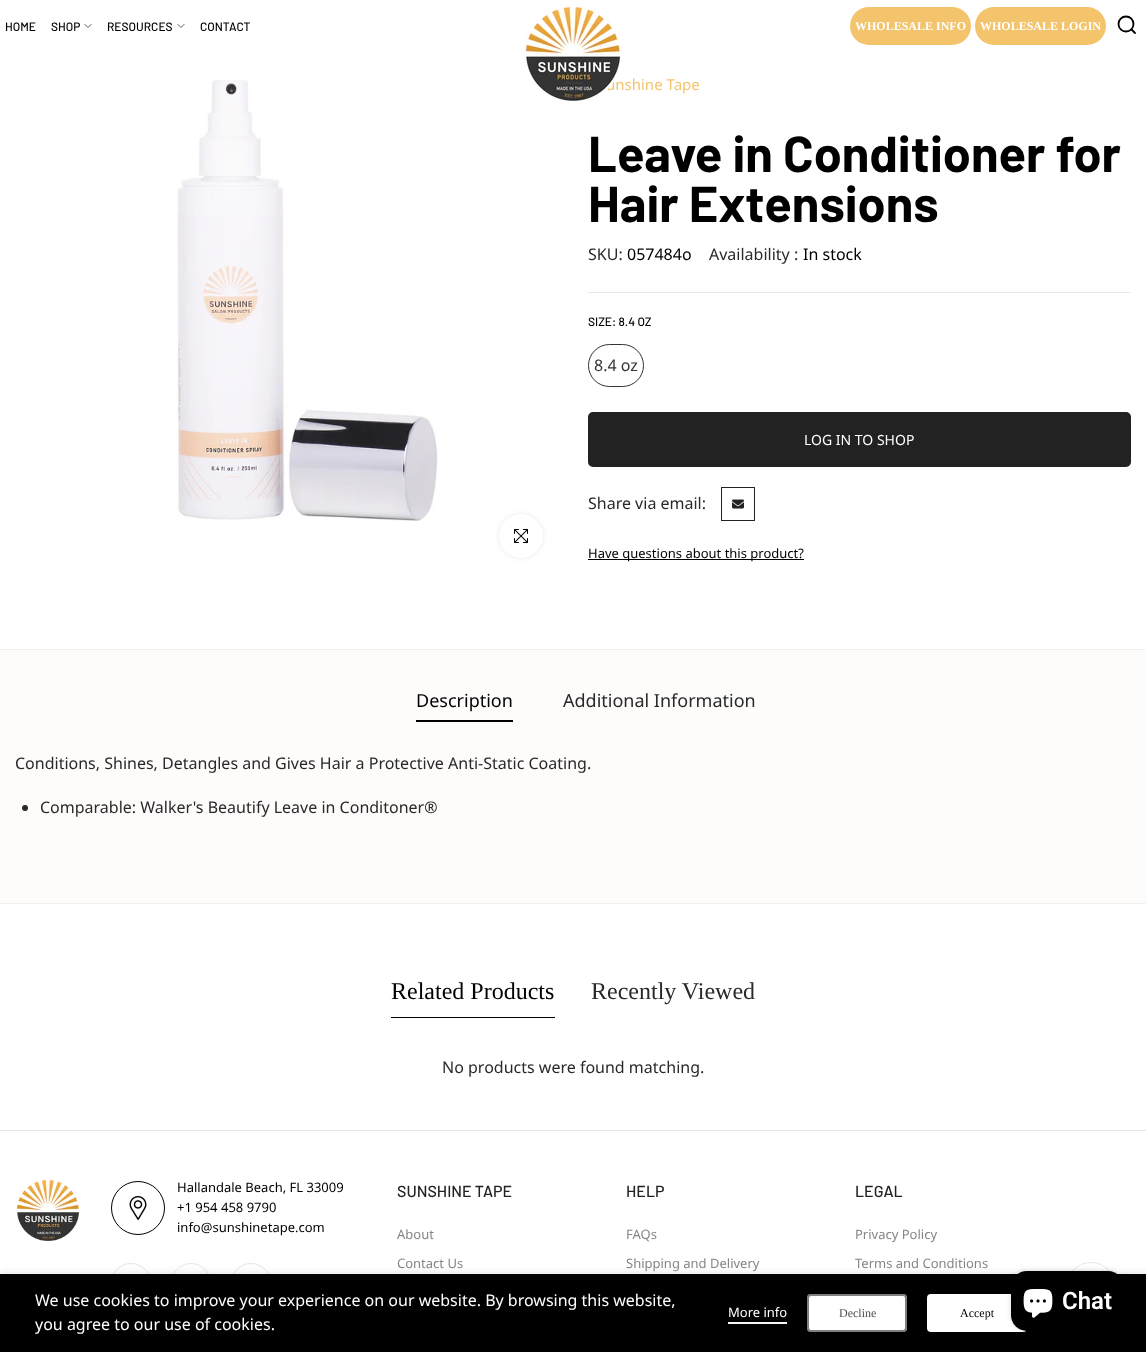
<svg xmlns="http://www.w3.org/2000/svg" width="1146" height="1352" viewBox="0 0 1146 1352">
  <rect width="100%" height="100%" fill="rgb(255,255,255)"/>
  <g font-family="Barlow" font-size="12" font-weight="500" fill="rgb(0,0,0)">
    <text x="5" y="31">HOME</text>
    <text x="51" y="31">SHOP</text>
  </g>
  <path d="M91 24.5L88 27.5L85 24.5" fill="none" stroke="rgb(51,51,51)" stroke-width="0.8" stroke-linecap="square"/>
  <text x="107" y="31" font-family="Barlow" font-size="12" font-weight="500" fill="rgb(0,0,0)">RESOURCES</text>
  <path d="M184 24.5L181 27.5L178 24.5" fill="none" stroke="rgb(51,51,51)" stroke-width="0.8" stroke-linecap="square"/>
  <text x="200" y="31" font-family="Barlow" font-size="12" font-weight="500" fill="rgb(0,0,0)">CONTACT</text>
  <text x="606" y="90" font-family="Noto Sans" font-size="15" fill="rgb(244,196,109)">unshine Tape</text>
  <image x="524" y="4" width="98" height="99" href="pic1.png"/>
  <rect x="850" y="7" width="121" height="38" rx="19" fill="rgb(244,196,109)"/>
  <text x="855" y="30" font-family="Liberation Serif" font-size="12" font-weight="bold" fill="rgb(255,255,255)">WHOLESALE INFO</text>
  <rect x="975" y="7" width="131" height="38" rx="19" fill="rgb(244,196,109)"/>
  <text x="980" y="30" font-family="Liberation Serif" font-size="12" font-weight="bold" fill="rgb(255,255,255)">WHOLESALE LOGIN</text>
  <circle cx="1126" cy="24" r="7.5" fill="none" stroke="rgb(0,0,0)" stroke-width="1.8"/>
  <path d="M1135 33L1131.5 29.5" fill="none" stroke="rgb(0,0,0)" stroke-width="1.8" stroke-linecap="round" stroke-linejoin="round"/>
  <image x="176" y="80" width="262" height="441" href="pic2.png"/>
  <rect x="499" y="514" width="44" height="44" rx="22" fill="rgba(0,0,0,0.09)" filter="blur(2.5px)"/>
  <circle cx="521" cy="536" r="22" fill="rgb(255,255,255)"/>
  <image x="514" y="529" width="14" height="14" href="pic3.png"/>
  <g font-family="Barlow" font-size="50.5" font-weight="bold" fill="rgb(0,0,0)">
    <text>
      <tspan x="588" y="172">Leave in Conditioner for</tspan>
      <tspan x="588" y="222">Hair Extensions</tspan>
    </text>
  </g>
  <text x="588" y="260" font-family="Noto Sans" font-size="16" fill="rgb(41,41,41)">SKU:</text>
  <text x="627" y="260" font-family="Noto Sans" font-size="16" fill="rgb(0,0,0)">057484o</text>
  <text x="709" y="260" font-family="Noto Sans" font-size="16" fill="rgb(41,41,41)">Availability :</text>
  <text x="803" y="260" font-family="Noto Sans" font-size="16" fill="rgb(0,0,0)">In stock</text>
  <rect x="588" y="292" width="543" height="1" fill="rgb(233,233,233)"/>
  <text x="588" y="326" font-family="Barlow" font-size="12" font-weight="500" fill="rgb(0,0,0)">SIZE: 8.4 OZ</text>
  <rect x="588.5" y="344.5" width="55" height="42" rx="21" fill="none" stroke="rgb(51,51,51)"/>
  <text x="594" y="371" font-family="Noto Sans" font-size="16" fill="rgb(51,51,51)">8.4 oz</text>
  <rect x="588" y="412" width="543" height="55" rx="5" fill="rgb(34,34,34)"/>
  <text x="804" y="445" font-family="Noto Sans" font-size="14" fill="rgb(255,255,255)">LOG IN TO SHOP</text>
  <text x="588" y="509" font-family="Noto Sans" font-size="16" fill="rgb(41,41,41)">Share via email:</text>
  <rect x="721.5" y="487.5" width="33" height="33" fill="none" stroke="rgb(34,34,34)"/>
  <image x="732" y="499" width="12" height="10" href="pic4.png"/>
  <rect x="588" y="559" width="216" height="1" fill="rgb(0,0,0)"/>
  <text x="588" y="558" font-family="Noto Sans" font-size="13" fill="rgb(0,0,0)">Have questions about this product?</text>
  <rect x="0" y="650" width="1146" height="253" fill="rgb(254,251,251)"/>
  <rect x="0" y="649" width="1146" height="1" fill="rgb(242,241,241)"/>
  <rect x="0" y="903" width="1146" height="1" fill="rgb(242,241,241)"/>
  <text x="416" y="707" font-family="Noto Sans" font-size="18" fill="rgb(0,0,0)">Description</text>
  <rect x="416" y="720" width="97" height="2" fill="rgb(0,0,0)"/>
  <text x="563" y="707" font-family="Noto Sans" font-size="18" fill="rgb(41,41,41)">Additional Information</text>
  <text x="15" y="769" font-family="Noto Sans" font-size="16" fill="rgb(41,41,41)">Conditions, Shines, Detangles and Gives Hair a Protective Anti-Static Coating.</text>
  <circle cx="25" cy="808" r="3" fill="rgb(41,41,41)"/>
  <text x="40" y="813" font-family="Noto Sans" font-size="16" fill="rgb(41,41,41)">Comparable: Walker's Beautify Leave in Conditoner®</text>
  <text x="391" y="999" font-family="Liberation Serif" font-size="24" fill="rgb(0,0,0)">Related Products</text>
  <rect x="391" y="1017" width="164" height="1" fill="rgb(0,0,0)"/>
  <text x="591" y="999" font-family="Liberation Serif" font-size="24" fill="rgb(41,41,41)">Recently Viewed</text>
  <text x="442" y="1073" font-family="Noto Sans" font-size="16" fill="rgb(41,41,41)">No products were found matching.</text>
  <rect x="0" y="1130" width="1146" height="1" fill="rgb(230,230,230)"/>
  <image x="16" y="1178" width="64" height="63" href="pic5.png"/>
  <circle cx="138" cy="1208" r="26.5" fill="none" stroke="rgb(0,0,0)"/>
  <image x="129" y="1196" width="18" height="24" href="pic6.png"/>
  <g font-family="Noto Sans" font-size="13" fill="rgb(0,0,0)">
    <text>
      <tspan x="177" y="1192">Hallandale Beach, FL 33009</tspan>
      <tspan x="177" y="1212">+1 954 458 9790</tspan>
      <tspan x="177" y="1232">info@sunshinetape.com</tspan>
    </text>
  </g>
  <circle cx="131" cy="1283" r="19.5" fill="none" stroke="rgb(230,230,230)"/>
  <circle cx="191" cy="1283" r="19.5" fill="none" stroke="rgb(230,230,230)"/>
  <circle cx="251" cy="1283" r="19.5" fill="none" stroke="rgb(230,230,230)"/>
  <text x="397" y="1197" font-family="Barlow" font-size="16" font-weight="500" fill="rgb(34,34,34)">SUNSHINE TAPE</text>
  <g font-family="Noto Sans" font-size="13" fill="rgb(134,134,134)">
    <text x="397" y="1239">About</text>
    <text x="397" y="1268">Contact Us</text>
  </g>
  <text x="626" y="1197" font-family="Barlow" font-size="16" font-weight="500" fill="rgb(34,34,34)">HELP</text>
  <g font-family="Noto Sans" font-size="13" fill="rgb(134,134,134)">
    <text x="626" y="1239">FAQs</text>
    <text x="626" y="1268">Shipping and Delivery</text>
  </g>
  <text x="855" y="1197" font-family="Barlow" font-size="16" font-weight="500" fill="rgb(34,34,34)">LEGAL</text>
  <g font-family="Noto Sans" font-size="13" fill="rgb(134,134,134)">
    <text x="855" y="1239">Privacy Policy</text>
    <text x="855" y="1268">Terms and Conditions</text>
  </g>
  <circle cx="1091" cy="1287" r="24.5" fill="none" stroke="rgb(230,230,230)"/>
  <rect x="0" y="1274" width="1146" height="78" fill="rgba(0,0,0,0.14)" filter="blur(4.5px)"/>
  <rect x="0" y="1274" width="1146" height="78" fill="rgb(0,0,0)"/>
  <g font-family="Noto Sans" font-size="16" fill="rgb(255,255,255)">
    <text>
      <tspan x="35" y="1306">We use cookies to improve your experience on our website. By browsing this website,</tspan>
      <tspan x="35" y="1330">you agree to our use of cookies.</tspan>
    </text>
  </g>
  <text x="728" y="1317" font-family="Noto Sans" font-size="13" fill="rgb(255,255,255)">More info</text>
  <rect x="728" y="1322" width="59" height="2" fill="rgb(246,246,248)"/>
  <rect x="807" y="1294" width="100" height="38" rx="4" fill="rgb(255,255,255)"/>
  <rect x="808" y="1295" width="98" height="36" rx="3" fill="none" stroke="rgba(0,0,0,0.5)" stroke-width="2"/>
  <text x="839" y="1317" font-family="Liberation Serif" font-size="12" fill="rgb(77,77,77)">Decline</text>
  <rect x="927" y="1294" width="100" height="38" rx="4" fill="rgb(255,255,255)"/>
  <text x="960" y="1317" font-family="Liberation Serif" font-size="12" fill="rgb(0,0,0)">Accept</text>
  <rect x="1011" y="1271" width="113" height="60" rx="16" fill="rgba(0,0,0,0.15)" filter="blur(2.5px)"/>
  <rect x="1011" y="1271" width="113" height="60" rx="16" fill="rgb(0,0,0)"/>
  <image x="1023" y="1289" width="30" height="29" href="pic7.png"/>
  <text x="1062" y="1309" font-family="Roboto" font-size="24" font-weight="600" fill="rgb(255,255,255)">Chat</text>
</svg>
